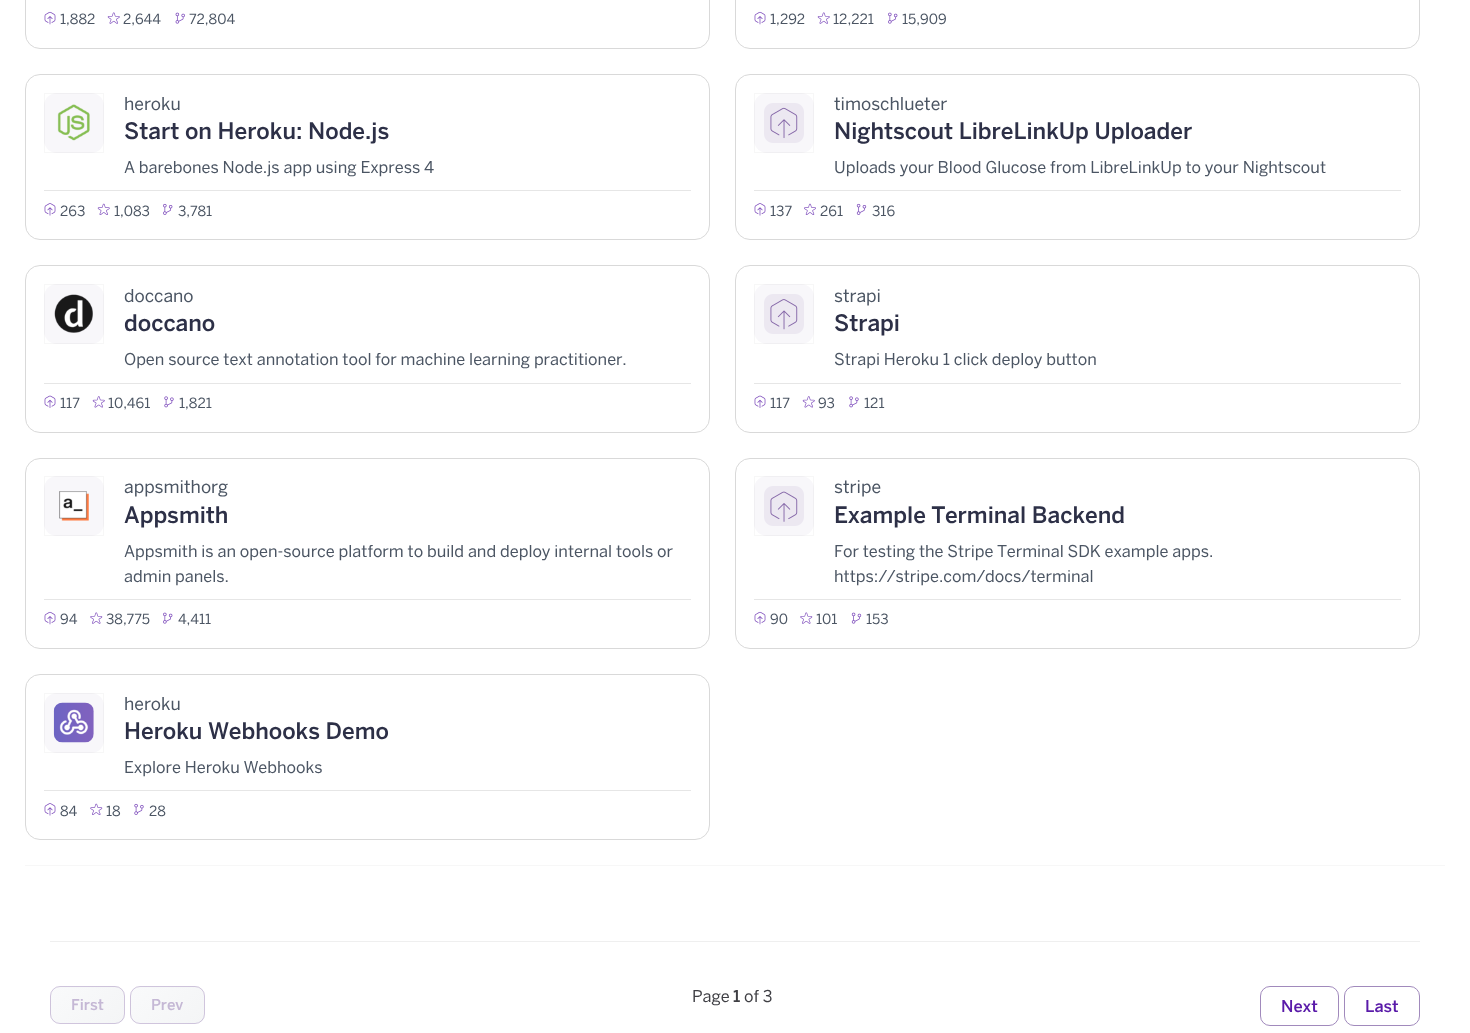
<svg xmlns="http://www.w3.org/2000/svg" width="1470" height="1033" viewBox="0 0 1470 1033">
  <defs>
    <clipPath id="clip1"><rect x="50" y="986" width="75" height="38" rx="10"/></clipPath>
    <linearGradient id="g1" gradientUnits="userSpaceOnUse" x1="61" y1="943" x2="114" y2="997"><stop offset="0" stop-color="rgb(249,250,251)"/><stop offset="1" stop-color="rgb(244,245,246)"/></linearGradient>
    <linearGradient id="g2" gradientUnits="userSpaceOnUse" x1="-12" y1="978" x2="42" y2="1032"><stop offset="0" stop-color="rgb(249,250,251)"/><stop offset="1" stop-color="rgb(244,245,246)"/></linearGradient>
    <linearGradient id="g3" gradientUnits="userSpaceOnUse" x1="61" y1="978" x2="114" y2="1032"><stop offset="0" stop-color="rgb(249,250,251)"/><stop offset="1" stop-color="rgb(244,245,246)"/></linearGradient>
    <linearGradient id="g4" gradientUnits="userSpaceOnUse" x1="133" y1="978" x2="187" y2="1032"><stop offset="0" stop-color="rgb(249,250,251)"/><stop offset="1" stop-color="rgb(244,245,246)"/></linearGradient>
    <linearGradient id="g5" gradientUnits="userSpaceOnUse" x1="61" y1="1013" x2="114" y2="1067"><stop offset="0" stop-color="rgb(249,250,251)"/><stop offset="1" stop-color="rgb(244,245,246)"/></linearGradient>
    <clipPath id="clip2"><rect x="130" y="986" width="75" height="38" rx="10"/></clipPath>
    <linearGradient id="g6" gradientUnits="userSpaceOnUse" x1="141" y1="943" x2="194" y2="997"><stop offset="0" stop-color="rgb(249,250,251)"/><stop offset="1" stop-color="rgb(244,245,246)"/></linearGradient>
    <linearGradient id="g7" gradientUnits="userSpaceOnUse" x1="68" y1="978" x2="122" y2="1032"><stop offset="0" stop-color="rgb(249,250,251)"/><stop offset="1" stop-color="rgb(244,245,246)"/></linearGradient>
    <linearGradient id="g8" gradientUnits="userSpaceOnUse" x1="141" y1="978" x2="194" y2="1032"><stop offset="0" stop-color="rgb(249,250,251)"/><stop offset="1" stop-color="rgb(244,245,246)"/></linearGradient>
    <linearGradient id="g9" gradientUnits="userSpaceOnUse" x1="213" y1="978" x2="267" y2="1032"><stop offset="0" stop-color="rgb(249,250,251)"/><stop offset="1" stop-color="rgb(244,245,246)"/></linearGradient>
    <linearGradient id="g10" gradientUnits="userSpaceOnUse" x1="141" y1="1013" x2="194" y2="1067"><stop offset="0" stop-color="rgb(249,250,251)"/><stop offset="1" stop-color="rgb(244,245,246)"/></linearGradient>
  </defs>
  <rect width="100%" height="100%" fill="rgb(255,255,255)"/>
  <rect x="25" y="865" width="1420" height="1" fill="rgb(247,247,247)"/>
  <rect x="25.5" y="-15.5" width="684" height="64" rx="14.5" fill="none" stroke="rgb(217,217,217)"/>
  <image x="44" y="11" width="12" height="14" href="pic1.png"/>
  <text x="60" y="24" font-family="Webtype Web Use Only" font-size="14" fill="rgb(75,85,99)">1,882</text>
  <image x="107" y="12" width="13" height="12" href="pic2.png"/>
  <text x="123" y="24" font-family="Webtype Web Use Only" font-size="14" fill="rgb(75,85,99)">2,644</text>
  <image x="175" y="12" width="10" height="12" href="pic3.png"/>
  <text x="189" y="24" font-family="Webtype Web Use Only" font-size="14" fill="rgb(75,85,99)">72,804</text>
  <rect x="735.5" y="-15.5" width="684" height="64" rx="14.5" fill="none" stroke="rgb(217,217,217)"/>
  <image x="754" y="11" width="12" height="14" href="pic1.png"/>
  <text x="770" y="24" font-family="Webtype Web Use Only" font-size="14" fill="rgb(75,85,99)">1,292</text>
  <image x="817" y="12" width="13" height="12" href="pic2.png"/>
  <text x="833" y="24" font-family="Webtype Web Use Only" font-size="14" fill="rgb(75,85,99)">12,221</text>
  <image x="888" y="12" width="10" height="12" href="pic4.png"/>
  <text x="902" y="24" font-family="Webtype Web Use Only" font-size="14" fill="rgb(75,85,99)">15,909</text>
  <rect x="25.5" y="74.5" width="684" height="165" rx="14.5" fill="none" stroke="rgb(217,217,217)"/>
  <rect x="44" y="93" width="60" height="60" rx="13" fill="rgb(248,247,250)"/>
  <rect x="44.5" y="93.5" width="59" height="59" fill="none" stroke="rgba(0,0,0,0.03)"/>
  <image x="57" y="104" width="33" height="37" href="pic5.png"/>
  <text x="124" y="110" font-family="Webtype Web Use Only" font-size="17.5" fill="rgb(75,85,99)">heroku</text>
  <text x="124" y="139" font-family="Webtype Web Use Only" font-size="22.5" font-weight="500" fill="rgb(45,48,71)">Start on Heroku: Node.js</text>
  <text x="124" y="173" font-family="Webtype Web Use Only" font-size="16.25" fill="rgb(75,85,99)">A barebones Node.js app using Express 4</text>
  <rect x="44" y="190" width="647" height="1" fill="rgb(230,230,230)"/>
  <image x="44" y="203" width="12" height="13" href="pic6.png"/>
  <text x="60" y="216" font-family="Webtype Web Use Only" font-size="14" fill="rgb(75,85,99)">263</text>
  <image x="97" y="203" width="13" height="12" href="pic7.png"/>
  <text x="114" y="216" font-family="Webtype Web Use Only" font-size="14" fill="rgb(75,85,99)">1,083</text>
  <image x="163" y="203" width="10" height="12" href="pic8.png"/>
  <text x="178" y="216" font-family="Webtype Web Use Only" font-size="14" fill="rgb(75,85,99)">3,781</text>
  <rect x="735.5" y="74.5" width="684" height="165" rx="14.5" fill="none" stroke="rgb(217,217,217)"/>
  <rect x="754" y="93" width="60" height="60" rx="13" fill="rgb(248,247,250)"/>
  <rect x="754.5" y="93.5" width="59" height="59" fill="none" stroke="rgba(0,0,0,0.03)"/>
  <image x="764" y="103" width="40" height="40" href="pic9.png"/>
  <text x="834" y="110" font-family="Webtype Web Use Only" font-size="17.5" fill="rgb(75,85,99)">timoschlueter</text>
  <text x="834" y="139" font-family="Webtype Web Use Only" font-size="22.5" font-weight="500" fill="rgb(45,48,71)">Nightscout LibreLinkUp Uploader</text>
  <text x="834" y="173" font-family="Webtype Web Use Only" font-size="16.25" fill="rgb(75,85,99)">Uploads your Blood Glucose from LibreLinkUp to your Nightscout</text>
  <rect x="754" y="190" width="647" height="1" fill="rgb(230,230,230)"/>
  <image x="754" y="203" width="12" height="13" href="pic6.png"/>
  <text x="770" y="216" font-family="Webtype Web Use Only" font-size="14" fill="rgb(75,85,99)">137</text>
  <image x="804" y="203" width="12" height="12" href="pic10.png"/>
  <text x="820" y="216" font-family="Webtype Web Use Only" font-size="14" fill="rgb(75,85,99)">261</text>
  <image x="856" y="203" width="11" height="12" href="pic11.png"/>
  <text x="872" y="216" font-family="Webtype Web Use Only" font-size="14" fill="rgb(75,85,99)">316</text>
  <rect x="25.5" y="265.5" width="684" height="167" rx="14.5" fill="none" stroke="rgb(217,217,217)"/>
  <rect x="44" y="284" width="60" height="60" rx="13" fill="rgb(248,247,250)"/>
  <rect x="44.5" y="284.5" width="59" height="59" fill="none" stroke="rgba(0,0,0,0.03)"/>
  <image x="54" y="294" width="39" height="39" href="pic12.png"/>
  <text x="124" y="302" font-family="Webtype Web Use Only" font-size="17.5" fill="rgb(75,85,99)">doccano</text>
  <text x="124" y="331" font-family="Webtype Web Use Only" font-size="22.5" font-weight="500" fill="rgb(45,48,71)">doccano</text>
  <text x="124" y="365" font-family="Webtype Web Use Only" font-size="16.25" fill="rgb(75,85,99)">Open source text annotation tool for machine learning practitioner.</text>
  <rect x="44" y="383" width="647" height="1" fill="rgb(230,230,230)"/>
  <image x="44" y="395" width="12" height="13" href="pic13.png"/>
  <text x="60" y="408" font-family="Webtype Web Use Only" font-size="14" fill="rgb(75,85,99)">117</text>
  <image x="92" y="396" width="13" height="12" href="pic14.png"/>
  <text x="108" y="408" font-family="Webtype Web Use Only" font-size="14" fill="rgb(75,85,99)">10,461</text>
  <image x="164" y="396" width="10" height="12" href="pic15.png"/>
  <text x="179" y="408" font-family="Webtype Web Use Only" font-size="14" fill="rgb(75,85,99)">1,821</text>
  <rect x="735.5" y="265.5" width="684" height="167" rx="14.5" fill="none" stroke="rgb(217,217,217)"/>
  <rect x="754" y="284" width="60" height="60" rx="13" fill="rgb(248,247,250)"/>
  <rect x="754.5" y="284.5" width="59" height="59" fill="none" stroke="rgba(0,0,0,0.03)"/>
  <image x="764" y="294" width="40" height="40" href="pic16.png"/>
  <text x="834" y="302" font-family="Webtype Web Use Only" font-size="17.5" fill="rgb(75,85,99)">strapi</text>
  <text x="834" y="331" font-family="Webtype Web Use Only" font-size="22.5" font-weight="500" fill="rgb(45,48,71)">Strapi</text>
  <text x="834" y="365" font-family="Webtype Web Use Only" font-size="16.25" fill="rgb(75,85,99)">Strapi Heroku 1 click deploy button</text>
  <rect x="754" y="383" width="647" height="1" fill="rgb(230,230,230)"/>
  <image x="754" y="395" width="12" height="13" href="pic13.png"/>
  <text x="770" y="408" font-family="Webtype Web Use Only" font-size="14" fill="rgb(75,85,99)">117</text>
  <image x="802" y="396" width="13" height="12" href="pic14.png"/>
  <text x="818" y="408" font-family="Webtype Web Use Only" font-size="14" fill="rgb(75,85,99)">93</text>
  <image x="849" y="396" width="10" height="12" href="pic15.png"/>
  <text x="864" y="408" font-family="Webtype Web Use Only" font-size="14" fill="rgb(75,85,99)">121</text>
  <rect x="25.5" y="458.5" width="684" height="190" rx="14.5" fill="none" stroke="rgb(217,217,217)"/>
  <rect x="44" y="476" width="60" height="60" rx="13" fill="rgb(248,247,250)"/>
  <rect x="44.5" y="476.5" width="59" height="59" fill="none" stroke="rgba(0,0,0,0.03)"/>
  <image x="59" y="491" width="30" height="30" href="pic17.png"/>
  <text x="124" y="493" font-family="Webtype Web Use Only" font-size="17.5" fill="rgb(75,85,99)">appsmithorg</text>
  <text x="124" y="523" font-family="Webtype Web Use Only" font-size="22.5" font-weight="500" fill="rgb(45,48,71)">Appsmith</text>
  <g font-family="Webtype Web Use Only" font-size="16.25" fill="rgb(75,85,99)">
    <text>
      <tspan x="124" y="557">Appsmith is an open-source platform to build and deploy internal tools or</tspan>
      <tspan x="124" y="582">admin panels.</tspan>
    </text>
  </g>
  <rect x="44" y="599" width="647" height="1" fill="rgb(230,230,230)"/>
  <image x="44" y="611" width="12" height="14" href="pic1.png"/>
  <text x="60" y="624" font-family="Webtype Web Use Only" font-size="14" fill="rgb(75,85,99)">94</text>
  <image x="90" y="612" width="13" height="12" href="pic18.png"/>
  <text x="106" y="624" font-family="Webtype Web Use Only" font-size="14" fill="rgb(75,85,99)">38,775</text>
  <image x="163" y="612" width="10" height="12" href="pic4.png"/>
  <text x="178" y="624" font-family="Webtype Web Use Only" font-size="14" fill="rgb(75,85,99)">4,411</text>
  <rect x="735.5" y="458.5" width="684" height="190" rx="14.5" fill="none" stroke="rgb(217,217,217)"/>
  <rect x="754" y="476" width="60" height="60" rx="13" fill="rgb(248,247,250)"/>
  <rect x="754.5" y="476.5" width="59" height="59" fill="none" stroke="rgba(0,0,0,0.03)"/>
  <image x="764" y="486" width="40" height="40" href="pic19.png"/>
  <text x="834" y="493" font-family="Webtype Web Use Only" font-size="17.5" fill="rgb(75,85,99)">stripe</text>
  <text x="834" y="523" font-family="Webtype Web Use Only" font-size="22.5" font-weight="500" fill="rgb(45,48,71)">Example Terminal Backend</text>
  <g font-family="Webtype Web Use Only" font-size="16.25" fill="rgb(75,85,99)">
    <text>
      <tspan x="834" y="557">For testing the Stripe Terminal SDK example apps.</tspan>
      <tspan x="834" y="582">https://stripe.com/docs/terminal</tspan>
    </text>
  </g>
  <rect x="754" y="599" width="647" height="1" fill="rgb(230,230,230)"/>
  <image x="754" y="611" width="12" height="14" href="pic1.png"/>
  <text x="770" y="624" font-family="Webtype Web Use Only" font-size="14" fill="rgb(75,85,99)">90</text>
  <image x="800" y="612" width="13" height="12" href="pic18.png"/>
  <text x="816" y="624" font-family="Webtype Web Use Only" font-size="14" fill="rgb(75,85,99)">101</text>
  <image x="851" y="612" width="11" height="12" href="pic20.png"/>
  <text x="866" y="624" font-family="Webtype Web Use Only" font-size="14" fill="rgb(75,85,99)">153</text>
  <rect x="25.5" y="674.5" width="684" height="165" rx="14.5" fill="none" stroke="rgb(217,217,217)"/>
  <rect x="44" y="693" width="60" height="60" rx="13" fill="rgb(248,247,250)"/>
  <rect x="44.5" y="693.5" width="59" height="59" fill="none" stroke="rgba(0,0,0,0.03)"/>
  <image x="53" y="702" width="41" height="41" href="pic21.png"/>
  <text x="124" y="710" font-family="Webtype Web Use Only" font-size="17.5" fill="rgb(75,85,99)">heroku</text>
  <text x="124" y="739" font-family="Webtype Web Use Only" font-size="22.5" font-weight="500" fill="rgb(45,48,71)">Heroku Webhooks Demo</text>
  <text x="124" y="773" font-family="Webtype Web Use Only" font-size="16.25" fill="rgb(75,85,99)">Explore Heroku Webhooks</text>
  <rect x="44" y="790" width="647" height="1" fill="rgb(230,230,230)"/>
  <image x="44" y="803" width="12" height="13" href="pic6.png"/>
  <text x="60" y="816" font-family="Webtype Web Use Only" font-size="14" fill="rgb(75,85,99)">84</text>
  <image x="90" y="803" width="13" height="12" href="pic22.png"/>
  <text x="106" y="816" font-family="Webtype Web Use Only" font-size="14" fill="rgb(75,85,99)">18</text>
  <image x="134" y="803" width="10" height="12" href="pic23.png"/>
  <text x="149" y="816" font-family="Webtype Web Use Only" font-size="14" fill="rgb(75,85,99)">28</text>
  <rect x="50" y="941" width="1370" height="1" fill="rgb(239,239,239)"/>
  <g clip-path="url(#clip1)">
    <rect x="51" y="986" width="73" height="2" fill="url(#g1)"/>
    <rect x="50" y="988" width="1" height="35" fill="url(#g2)"/>
    <rect x="51" y="988" width="73" height="35" fill="url(#g3)"/>
    <rect x="124" y="988" width="1" height="35" fill="url(#g4)"/>
    <rect x="51" y="1023" width="73" height="1" fill="url(#g5)"/>
  </g>
  <rect x="50.5" y="986.5" width="74" height="37" rx="9.5" fill="none" stroke="rgba(148,121,178,0.4)"/>
  <text x="71" y="1010" font-family="Webtype Web Use Only" font-size="15" font-weight="500" fill="rgb(197,184,213)">First</text>
  <g clip-path="url(#clip2)">
    <rect x="131" y="986" width="73" height="2" fill="url(#g6)"/>
    <rect x="130" y="988" width="1" height="35" fill="url(#g7)"/>
    <rect x="131" y="988" width="73" height="35" fill="url(#g8)"/>
    <rect x="204" y="988" width="1" height="35" fill="url(#g9)"/>
    <rect x="131" y="1023" width="73" height="1" fill="url(#g10)"/>
  </g>
  <rect x="130.5" y="986.5" width="74" height="37" rx="9.5" fill="none" stroke="rgba(148,121,178,0.4)"/>
  <text x="151" y="1010" font-family="Webtype Web Use Only" font-size="15" font-weight="500" fill="rgb(197,184,213)">Prev</text>
  <text x="692" y="1002" font-family="Webtype Web Use Only" font-size="16.25" fill="rgb(63,63,68)">Page</text>
  <text x="733" y="1002" font-family="Webtype Web Use Only" font-size="16.25" font-weight="500" fill="rgb(63,63,68)">1</text>
  <text x="744" y="1002" font-family="Webtype Web Use Only" font-size="16.25" fill="rgb(63,63,68)">of 3</text>
  <rect x="1260.5" y="986.5" width="78" height="39" rx="9.5" fill="none" stroke="rgba(121,88,159,0.7)"/>
  <text x="1281" y="1012" font-family="Webtype Web Use Only" font-size="16.25" font-weight="500" fill="rgb(90,27,169)">Next</text>
  <rect x="1344.5" y="986.5" width="75" height="39" rx="9.5" fill="none" stroke="rgb(161,138,188)"/>
  <text x="1365" y="1012" font-family="Webtype Web Use Only" font-size="16.25" font-weight="500" fill="rgb(90,27,169)">Last</text>
</svg>
